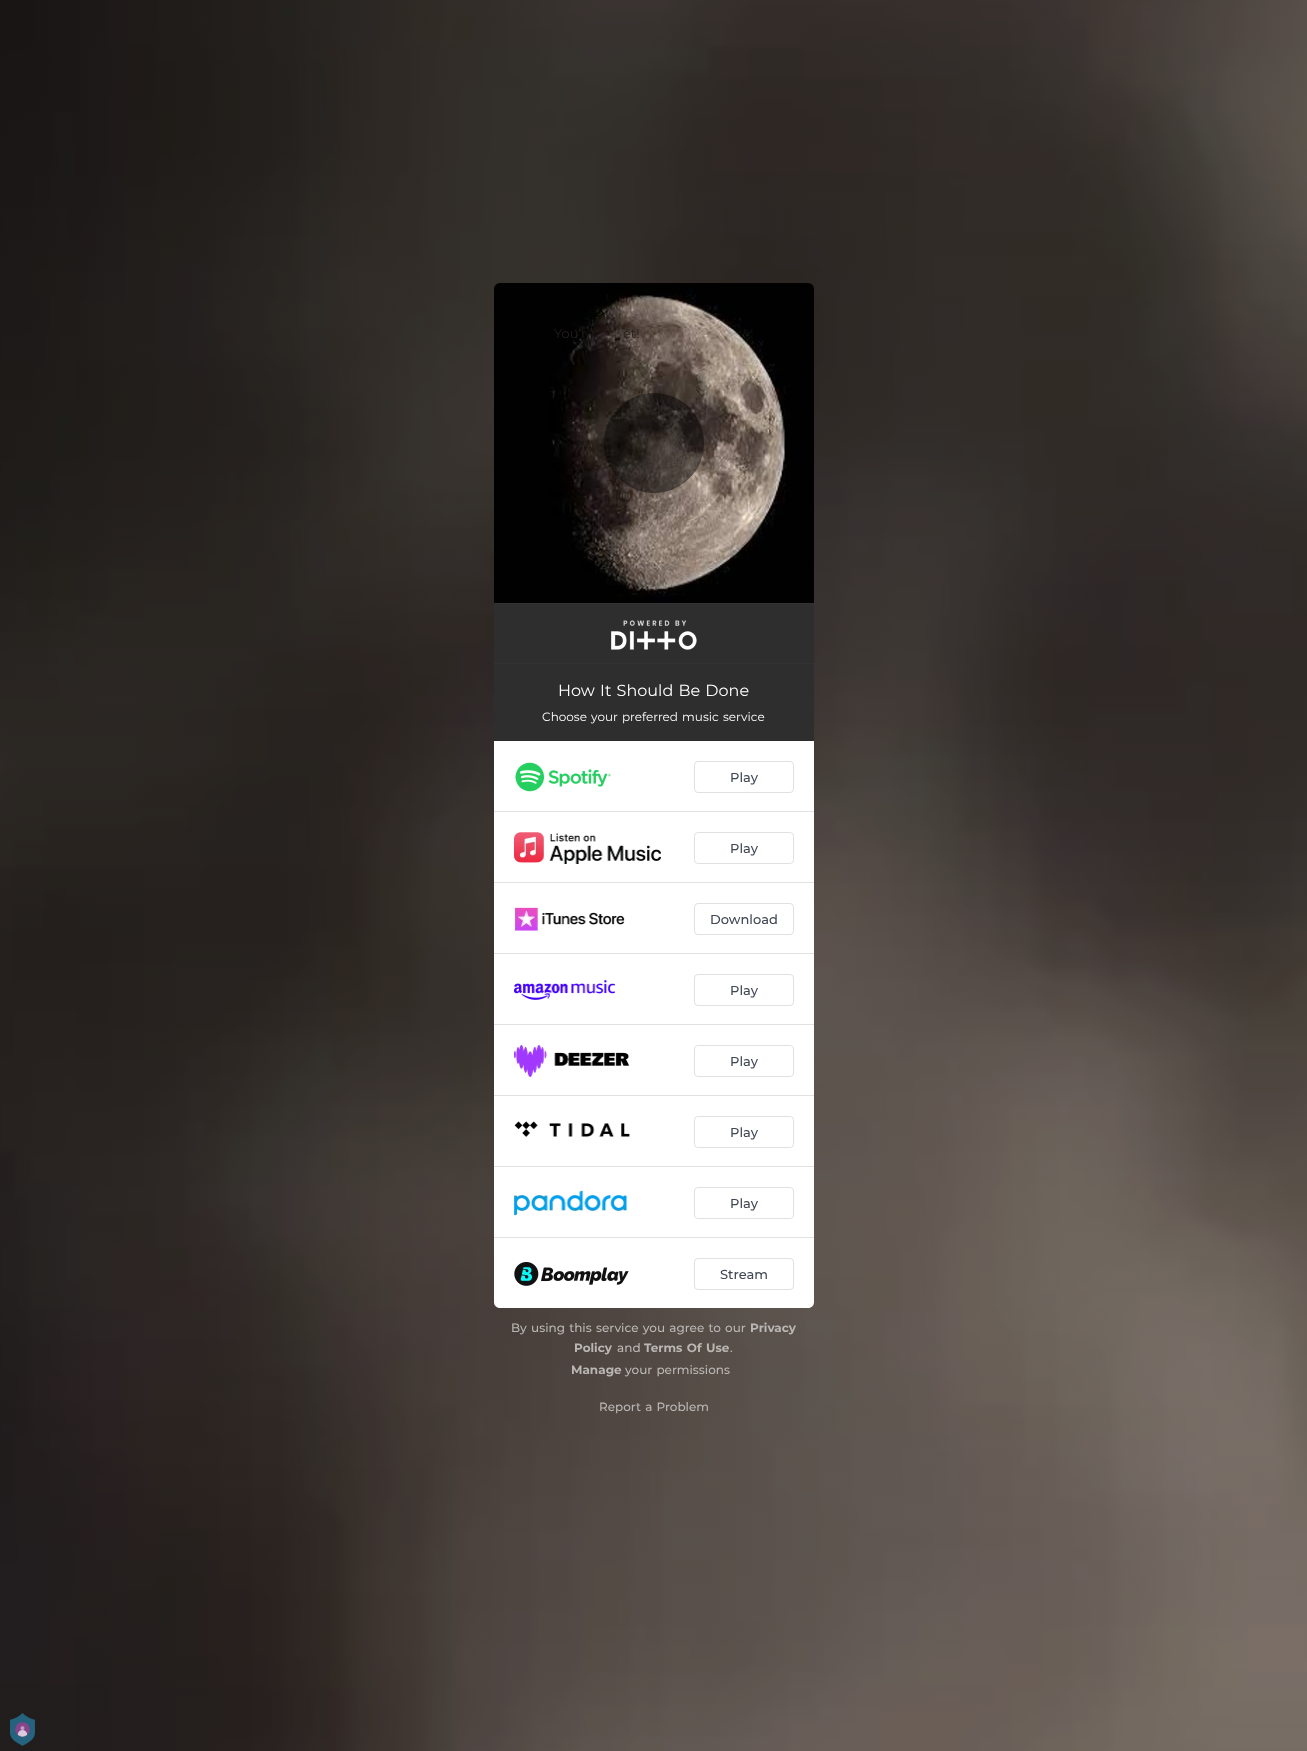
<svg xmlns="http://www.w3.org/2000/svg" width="1307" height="1751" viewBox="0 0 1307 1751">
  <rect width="100%" height="100%" fill="rgb(255,255,255)"/>
  <image x="0" y="0" width="1307" height="1751" href="pic1.png"/>
  <image x="494" y="283" width="320" height="320" href="pic2.png"/>
  <circle cx="654" cy="443" r="50" fill="rgba(0,0,0,0.45)"/>
  <g font-family="Montserrat" font-size="13" fill="rgb(37,31,28)">
    <text x="554" y="338" word-spacing="1">You'r</text>
    <text x="623" y="338" word-spacing="1">et!</text>
  </g>
  <rect x="494" y="604" width="320" height="59" fill="rgb(46,46,46)"/>
  <rect x="494" y="603" width="320" height="1" fill="rgb(51,51,51)"/>
  <rect x="494" y="663" width="320" height="1" fill="rgb(51,51,51)"/>
  <image x="611" y="620" width="86" height="30" href="pic3.png"/>
  <rect x="494" y="664" width="320" height="77" fill="rgb(46,46,46)"/>
  <text x="558" y="696" word-spacing="1" font-family="Montserrat" font-size="16" fill="rgb(255,255,255)">How It Should Be Done</text>
  <text x="542" y="721" word-spacing="1" font-family="Montserrat" font-size="12" fill="rgb(255,255,255)">Choose your preferred music service</text>
  <path d="M494 741H814V1302C814 1305.5 811.5 1308 808 1308H500C496.5 1308 494 1305.5 494 1302Z" fill="rgb(255,255,255)"/>
  <rect x="494" y="811" width="320" height="1" fill="rgb(225,225,228)"/>
  <image x="515" y="762" width="96" height="30" href="pic4.png"/>
  <rect x="694.5" y="761.5" width="99" height="31" rx="3.5" fill="none" stroke="rgb(225,225,228)"/>
  <text x="730" y="782" font-family="Montserrat" font-size="13" font-weight="500" fill="rgb(65,71,84)">Play</text>
  <rect x="494" y="882" width="320" height="1" fill="rgb(225,225,228)"/>
  <image x="514" y="832" width="147" height="32" href="pic5.png"/>
  <rect x="694.5" y="832.5" width="99" height="31" rx="3.5" fill="none" stroke="rgb(225,225,228)"/>
  <text x="730" y="853" font-family="Montserrat" font-size="13" font-weight="500" fill="rgb(65,71,84)">Play</text>
  <rect x="494" y="953" width="320" height="1" fill="rgb(225,225,228)"/>
  <image x="515" y="907" width="110" height="24" href="pic6.png"/>
  <rect x="694.5" y="903.5" width="99" height="31" rx="3.5" fill="none" stroke="rgb(225,225,228)"/>
  <text x="710" y="924" font-family="Montserrat" font-size="13" font-weight="500" fill="rgb(65,71,84)">Download</text>
  <rect x="494" y="1024" width="320" height="1" fill="rgb(225,225,228)"/>
  <image x="514" y="980" width="101" height="20" href="pic7.png"/>
  <rect x="694.5" y="974.5" width="99" height="31" rx="3.5" fill="none" stroke="rgb(225,225,228)"/>
  <text x="730" y="995" font-family="Montserrat" font-size="13" font-weight="500" fill="rgb(65,71,84)">Play</text>
  <rect x="494" y="1095" width="320" height="1" fill="rgb(225,225,228)"/>
  <image x="514" y="1045" width="115" height="32" href="pic8.png"/>
  <rect x="694.5" y="1045.5" width="99" height="31" rx="3.5" fill="none" stroke="rgb(225,225,228)"/>
  <text x="730" y="1066" font-family="Montserrat" font-size="13" font-weight="500" fill="rgb(65,71,84)">Play</text>
  <rect x="494" y="1166" width="320" height="1" fill="rgb(225,225,228)"/>
  <image x="514" y="1121" width="116" height="16" href="pic9.png"/>
  <rect x="694.5" y="1116.5" width="99" height="31" rx="3.5" fill="none" stroke="rgb(225,225,228)"/>
  <text x="730" y="1137" font-family="Montserrat" font-size="13" font-weight="500" fill="rgb(65,71,84)">Play</text>
  <rect x="494" y="1237" width="320" height="1" fill="rgb(225,225,228)"/>
  <image x="514" y="1190" width="114" height="26" href="pic10.png"/>
  <rect x="694.5" y="1187.5" width="99" height="31" rx="3.5" fill="none" stroke="rgb(225,225,228)"/>
  <text x="730" y="1208" font-family="Montserrat" font-size="13" font-weight="500" fill="rgb(65,71,84)">Play</text>
  <image x="514" y="1262" width="115" height="24" href="pic11.png"/>
  <rect x="694.5" y="1258.5" width="99" height="31" rx="3.5" fill="none" stroke="rgb(225,225,228)"/>
  <text x="720" y="1279" font-family="Montserrat" font-size="13" font-weight="500" fill="rgb(65,71,84)">Stream</text>
  <text x="511" y="1332" word-spacing="1" font-family="Montserrat" font-size="12" font-weight="500" fill="rgb(185,182,180)">By using this service you agree to our</text>
  <g font-family="Montserrat" font-size="12" font-weight="bold" fill="rgb(185,182,180)">
    <text x="750" y="1332">Privacy</text>
    <text x="574" y="1352">Policy</text>
  </g>
  <text x="617" y="1352" font-family="Montserrat" font-size="12" font-weight="500" fill="rgb(185,182,180)">and</text>
  <text x="644" y="1352" word-spacing="1" font-family="Montserrat" font-size="12" font-weight="bold" fill="rgb(185,182,180)">Terms Of Use</text>
  <text x="730" y="1352" font-family="Montserrat" font-size="12" font-weight="500" fill="rgb(185,182,180)">.</text>
  <text x="571" y="1374" font-family="Montserrat" font-size="12" font-weight="bold" fill="rgb(185,182,180)">Manage</text>
  <g font-family="Montserrat" font-size="12" font-weight="500" fill="rgb(185,182,180)">
    <text x="625" y="1374" word-spacing="1">your permissions</text>
    <text x="599" y="1411" word-spacing="1">Report a Problem</text>
  </g>
  <image x="10" y="1713" width="25" height="33" href="pic12.png"/>
</svg>
